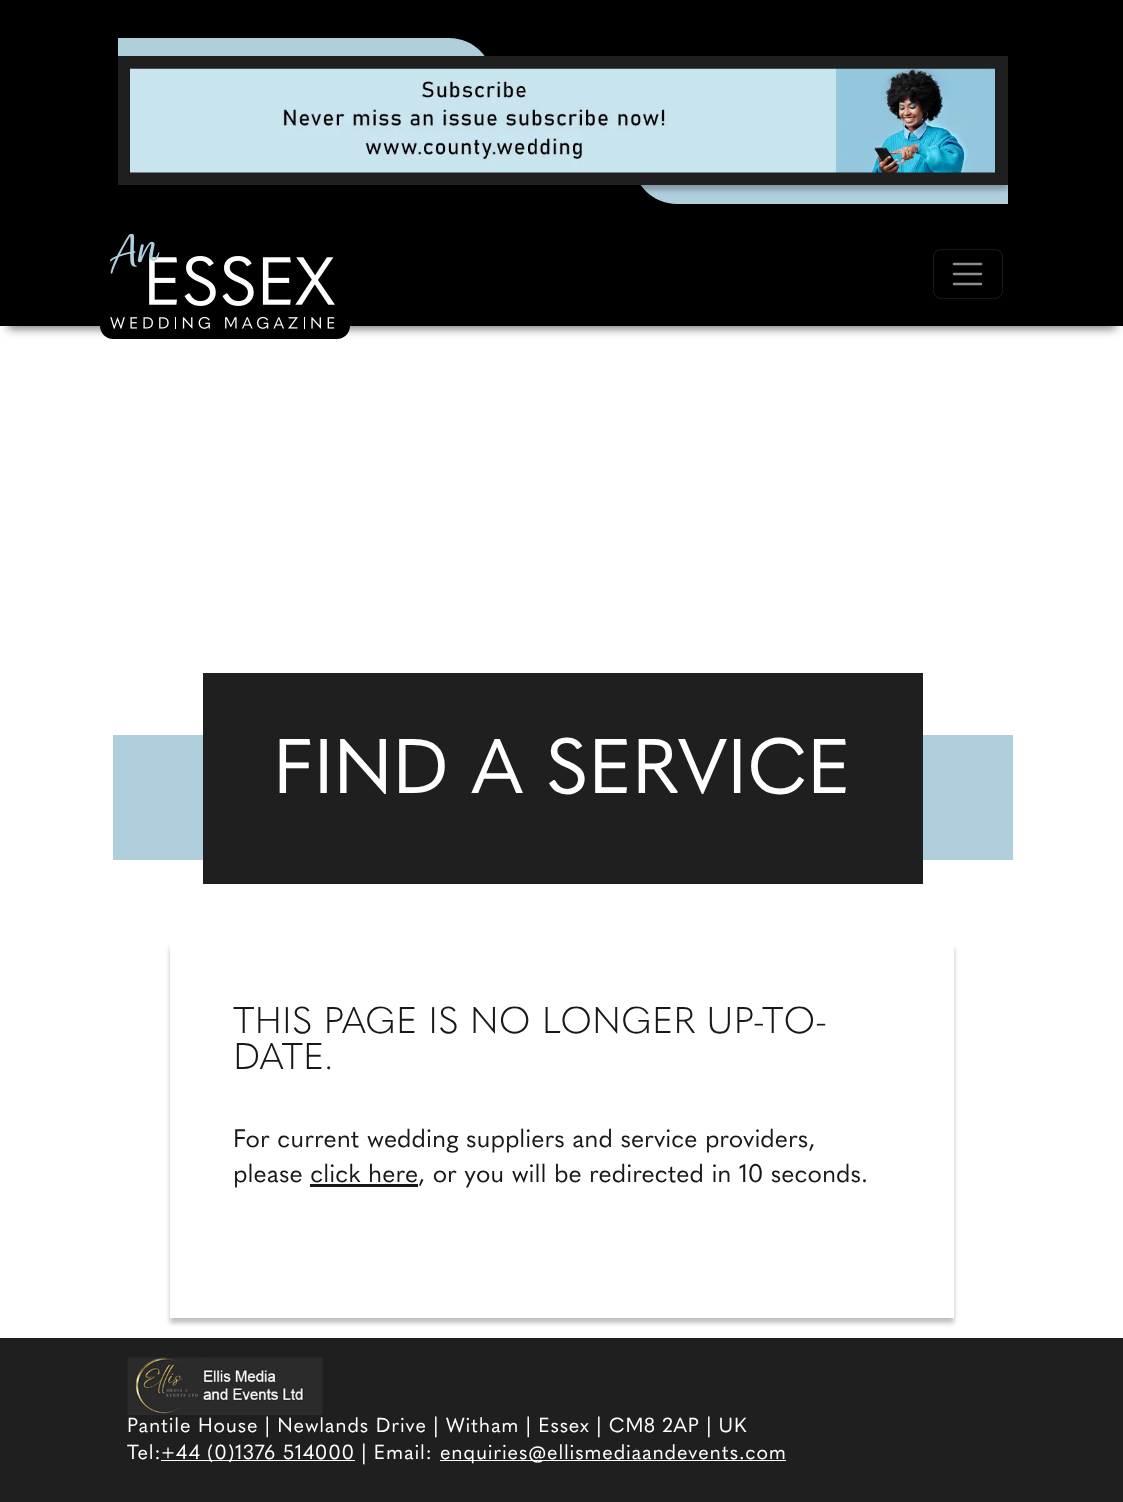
<svg xmlns="http://www.w3.org/2000/svg" width="1123" height="1502" viewBox="0 0 1123 1502">
  <defs>
    <clipPath id="clip1"><path d="M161 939H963V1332H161ZM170 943H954V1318H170Z" clip-rule="evenodd"/></clipPath>
  </defs>
  <rect width="100%" height="100%" fill="rgb(255,255,255)"/>
  <rect x="0" y="0" width="1123" height="221" fill="rgb(0,0,0)"/>
  <path d="M118 38H449C473.5 38 493 57.5 493 82V163H162C137.5 163 118 143.5 118 119Z" fill="rgb(176,207,221)"/>
  <path d="M633 79H964C988.5 79 1008 98.5 1008 123V204H677C652.5 204 633 184.5 633 160Z" fill="rgb(176,207,221)"/>
  <rect x="118" y="61" width="890" height="129" fill="rgba(0,0,0,0.25)" filter="blur(2.5px)"/>
  <rect x="118" y="56" width="890" height="129" fill="rgb(31,31,31)"/>
  <image x="130" y="68" width="865" height="105" href="pic1.png"/>
  <rect x="8" y="239" width="1108" height="90" fill="rgba(0,0,0,0.5)" filter="blur(5px)"/>
  <rect x="0" y="221" width="1123" height="105" fill="rgb(0,0,0)"/>
  <path d="M100 234H350V326C350 333 344 339 337 339H113C106 339 100 333 100 326Z" fill="rgb(0,0,0)"/>
  <image x="110" y="234" width="225" height="95" href="pic2.png"/>
  <rect x="933.5" y="249.5" width="69" height="49" rx="7.5" fill="none" stroke="rgb(26,26,26)"/>
  <path d="M954 264H981M954 274H981M954 284H981" fill="none" stroke="rgb(140,140,140)" stroke-width="2.5" stroke-linecap="round"/>
  <rect x="113" y="735" width="900" height="125" fill="rgb(176,207,221)"/>
  <rect x="203" y="673" width="720" height="211" fill="rgb(31,31,31)"/>
  <text x="273" y="793" font-family="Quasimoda" font-size="76.25" fill="rgb(255,255,255)">FIND A SERVICE</text>
  <g clip-path="url(#clip1)">
    <rect x="170" y="948" width="784" height="375" fill="rgba(0,0,0,0.25)" filter="blur(2.5px)"/>
  </g>
  <g font-family="Quasimoda" font-size="36.6" font-weight="300" fill="rgb(24,24,24)">
    <text>
      <tspan x="233" y="1033">THIS PAGE IS NO LONGER UP-TO-</tspan>
      <tspan x="233" y="1069">DATE.</tspan>
    </text>
  </g>
  <g font-family="Quasimoda" font-size="25" fill="rgb(24,24,24)">
    <text>
      <tspan x="233" y="1147">For current wedding suppliers and service providers,</tspan>
      <tspan x="233" y="1182">please click here, or you will be redirected in 10 seconds.</tspan>
    </text>
  </g>
  <rect x="310" y="1184" width="108" height="3" fill="rgb(24,24,24)"/>
  <rect x="0" y="1338" width="1123" height="164" fill="rgb(31,31,31)"/>
  <image x="127" y="1357" width="196" height="58" href="pic3.png"/>
  <g font-family="Quasimoda" font-size="20" letter-spacing="0.8" fill="rgb(255,255,255)">
    <text>
      <tspan x="127" y="1432">Pantile House | Newlands Drive | Witham | Essex | CM8 2AP | UK</tspan>
      <tspan x="127" y="1459">Tel:</tspan>
    </text>
  </g>
  <rect x="161" y="1460" width="194" height="1" fill="rgb(255,255,255)"/>
  <text x="161" y="1459" font-family="Quasimoda" font-size="20" letter-spacing="0.8" fill="rgb(255,255,255)">+44 (0)1376 514000 | Email:</text>
  <rect x="440" y="1460" width="346" height="1" fill="rgb(255,255,255)"/>
  <text x="440" y="1459" font-family="Quasimoda" font-size="20" letter-spacing="0.8" fill="rgb(255,255,255)">enquiries@ellismediaandevents.com</text>
</svg>
